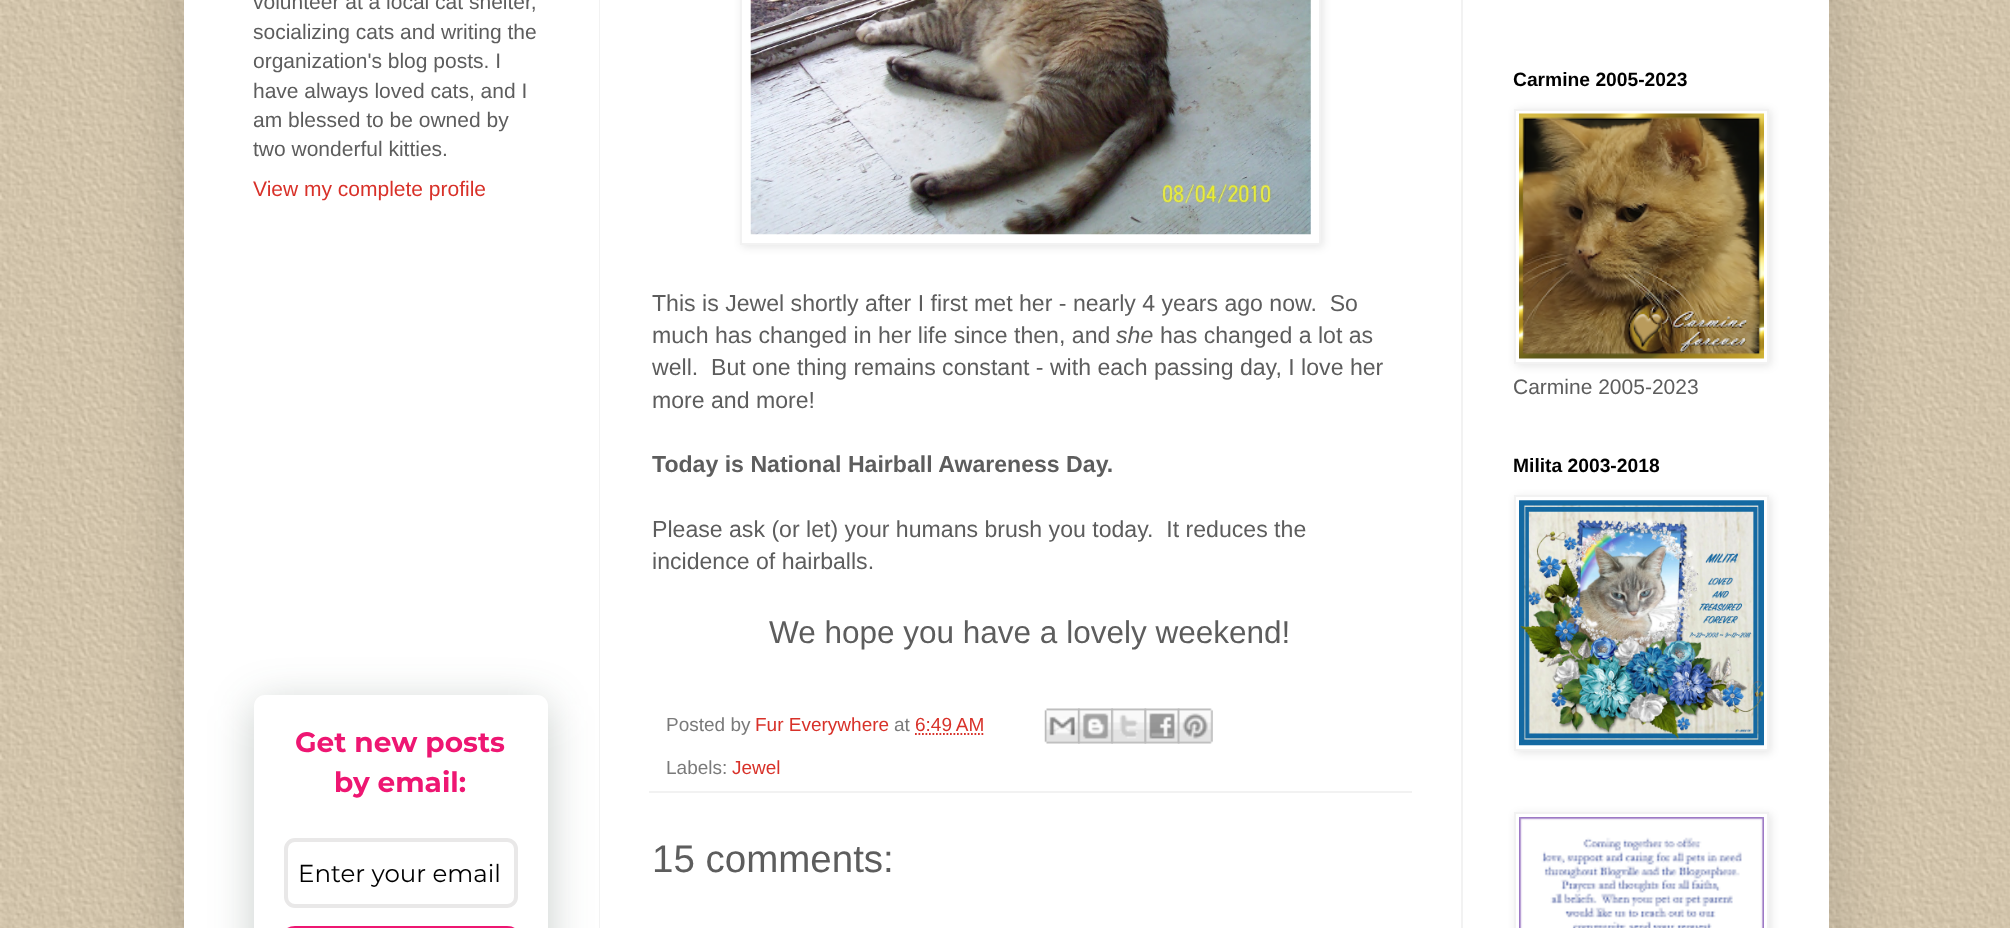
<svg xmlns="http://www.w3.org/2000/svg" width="2010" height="928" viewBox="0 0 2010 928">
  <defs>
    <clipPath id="clip1"><path d="M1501 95H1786V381H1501ZM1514 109H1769V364H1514Z" clip-rule="evenodd"/></clipPath>
    <clipPath id="clip2"><path d="M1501 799H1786V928H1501ZM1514 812H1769V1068H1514Z" clip-rule="evenodd"/></clipPath>
  </defs>
  <rect width="100%" height="100%" fill="rgb(255,255,255)"/>
  <image x="0" y="0" width="2010" height="928" href="pic1.png"/>
  <rect x="184" y="-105" width="1645" height="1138" fill="rgba(0,0,0,0.15)" filter="blur(35px)"/>
  <rect x="184" y="0" width="1645" height="928" fill="rgb(255,255,255)"/>
  <g font-family="Liberation Sans" font-size="21" fill="rgb(93,93,93)">
    <text>
      <tspan x="253" y="9">volunteer at a local cat shelter,</tspan>
      <tspan x="253" y="39">socializing cats and writing the</tspan>
      <tspan x="253" y="68">organization's blog posts. I</tspan>
      <tspan x="253" y="98">have always loved cats, and I</tspan>
      <tspan x="253" y="127">am blessed to be owned by</tspan>
      <tspan x="253" y="156">two wonderful kitties.</tspan>
    </text>
  </g>
  <text x="253" y="196" font-family="Liberation Sans" font-size="21" fill="rgb(216,49,41)">View my complete profile</text>
  <rect x="599" y="0" width="1" height="928" fill="rgb(242,242,242)"/>
  <rect x="254" y="704" width="294" height="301" rx="11" fill="rgba(34,60,47,0.25)" filter="blur(22px)"/>
  <rect x="254" y="695" width="294" height="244" rx="11" fill="rgb(255,255,255)"/>
  <g font-family="Montserrat" font-size="28" font-weight="100" fill="rgb(238,22,114)">
    <text x="295" y="752">Get new posts</text>
    <text x="334" y="792">by email:</text>
  </g>
  <rect x="286" y="840" width="230" height="66" rx="9" fill="none" stroke="rgb(233,232,232)" stroke-width="4"/>
  <text x="298" y="882" font-family="'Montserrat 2'" font-size="24.5" font-weight="100" fill="rgb(0,0,0)">Enter your email</text>
  <rect x="284" y="926" width="234" height="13" rx="11" fill="rgb(238,22,114)"/>
  <rect x="742" y="-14" width="581" height="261" fill="rgba(0,0,0,0.1)" filter="blur(4.5px)"/>
  <rect x="741" y="-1" width="579" height="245" fill="rgb(255,255,255)" stroke="rgb(242,242,242)" stroke-width="2"/>
  <image x="750" y="0" width="561" height="235" href="pic2.png"/>
  <g font-family="Liberation Sans" font-size="23.1" fill="rgb(93,93,93)">
    <text xml:space="preserve"><tspan x="652" y="311">This is Jewel shortly after I first met her - nearly 4 years ago now.  So</tspan><tspan x="652" y="343">much has changed in her life since then, and</tspan></text>
  </g>
  <text x="1116" y="343" font-family="Liberation Sans" font-size="23.1" font-style="italic" fill="rgb(93,93,93)">she</text>
  <g font-family="Liberation Sans" font-size="23.1" fill="rgb(93,93,93)">
    <text x="1160" y="343">has changed a lot as</text>
    <text xml:space="preserve"><tspan x="652" y="375">well.  But one thing remains constant - with each passing day, I love her</tspan><tspan x="652" y="408">more and more!</tspan></text>
  </g>
  <text x="652" y="472" font-family="Liberation Sans" font-size="23.1" font-weight="bold" fill="rgb(93,93,93)">Today is National Hairball Awareness Day.</text>
  <g font-family="Liberation Sans" font-size="23.1" fill="rgb(93,93,93)">
    <text xml:space="preserve"><tspan x="652" y="537">Please ask (or let) your humans brush you today.  It reduces the</tspan><tspan x="652" y="569">incidence of hairballs.</tspan></text>
  </g>
  <text x="769" y="643" font-family="Liberation Sans" font-size="31.5" fill="rgb(93,93,93)">We hope you have a lovely weekend!</text>
  <rect x="649" y="791" width="763" height="2" fill="rgb(242,242,242)"/>
  <text x="666" y="731" font-family="Liberation Sans" font-size="19" fill="rgb(122,122,122)">Posted by</text>
  <text x="755" y="731" font-family="Liberation Sans" font-size="19" fill="rgb(216,49,41)">Fur Everywhere</text>
  <text x="894" y="731" font-family="Liberation Sans" font-size="19" fill="rgb(122,122,122)">at</text>
  <text x="915" y="731" font-family="Liberation Sans" font-size="19" fill="rgb(216,49,41)">6:49 AM</text>
  <path d="M915 734H983.5" fill="none" stroke="rgb(216,49,41)" stroke-width="1.8" stroke-dasharray="1.75 1.75"/>
  <image x="1044" y="708" width="36" height="36" href="pic3.png"/>
  <image x="1078" y="708" width="35" height="36" href="pic4.png"/>
  <image x="1111" y="708" width="36" height="36" href="pic5.png"/>
  <image x="1144" y="708" width="36" height="36" href="pic6.png"/>
  <image x="1177" y="708" width="36" height="36" href="pic7.png"/>
  <text x="666" y="774" font-family="Liberation Sans" font-size="19" fill="rgb(122,122,122)">Labels:</text>
  <text x="732" y="774" font-family="Liberation Sans" font-size="19" fill="rgb(216,49,41)">Jewel</text>
  <text x="652" y="872" font-family="Liberation Sans" font-size="38.5" fill="rgb(93,93,93)">15 comments:</text>
  <text x="1513" y="86" font-family="Liberation Sans" font-size="19.25" font-weight="bold" fill="rgb(0,0,0)">Carmine 2005-2023</text>
  <g clip-path="url(#clip1)">
    <rect x="1516" y="110" width="255" height="256" fill="rgba(0,0,0,0.1)" filter="blur(4.5px)"/>
  </g>
  <rect x="1515" y="110" width="253" height="253" fill="none" stroke="rgb(242,242,242)" stroke-width="2"/>
  <image x="1519" y="113" width="245" height="246" href="pic8.png"/>
  <text x="1513" y="394" font-family="Liberation Sans" font-size="21" fill="rgb(93,93,93)">Carmine 2005-2023</text>
  <text x="1513" y="472" font-family="Liberation Sans" font-size="19.25" font-weight="bold" fill="rgb(0,0,0)">Milita 2003-2018</text>
  <rect x="1516" y="497" width="255" height="256" fill="rgba(0,0,0,0.1)" filter="blur(4.5px)"/>
  <rect x="1515" y="496" width="253" height="254" fill="rgb(255,255,255)" stroke="rgb(242,242,242)" stroke-width="2"/>
  <image x="1519" y="500" width="245" height="246" href="pic9.png"/>
  <g clip-path="url(#clip2)">
    <rect x="1516" y="814" width="255" height="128" fill="rgba(0,0,0,0.1)" filter="blur(4.5px)"/>
  </g>
  <rect x="1515" y="813" width="253" height="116" fill="none" stroke="rgb(242,242,242)" stroke-width="2"/>
  <image x="1519" y="817" width="245" height="111" href="pic10.png"/>
  <rect x="1461" y="0" width="2" height="928" fill="rgb(242,242,242)"/>
</svg>
